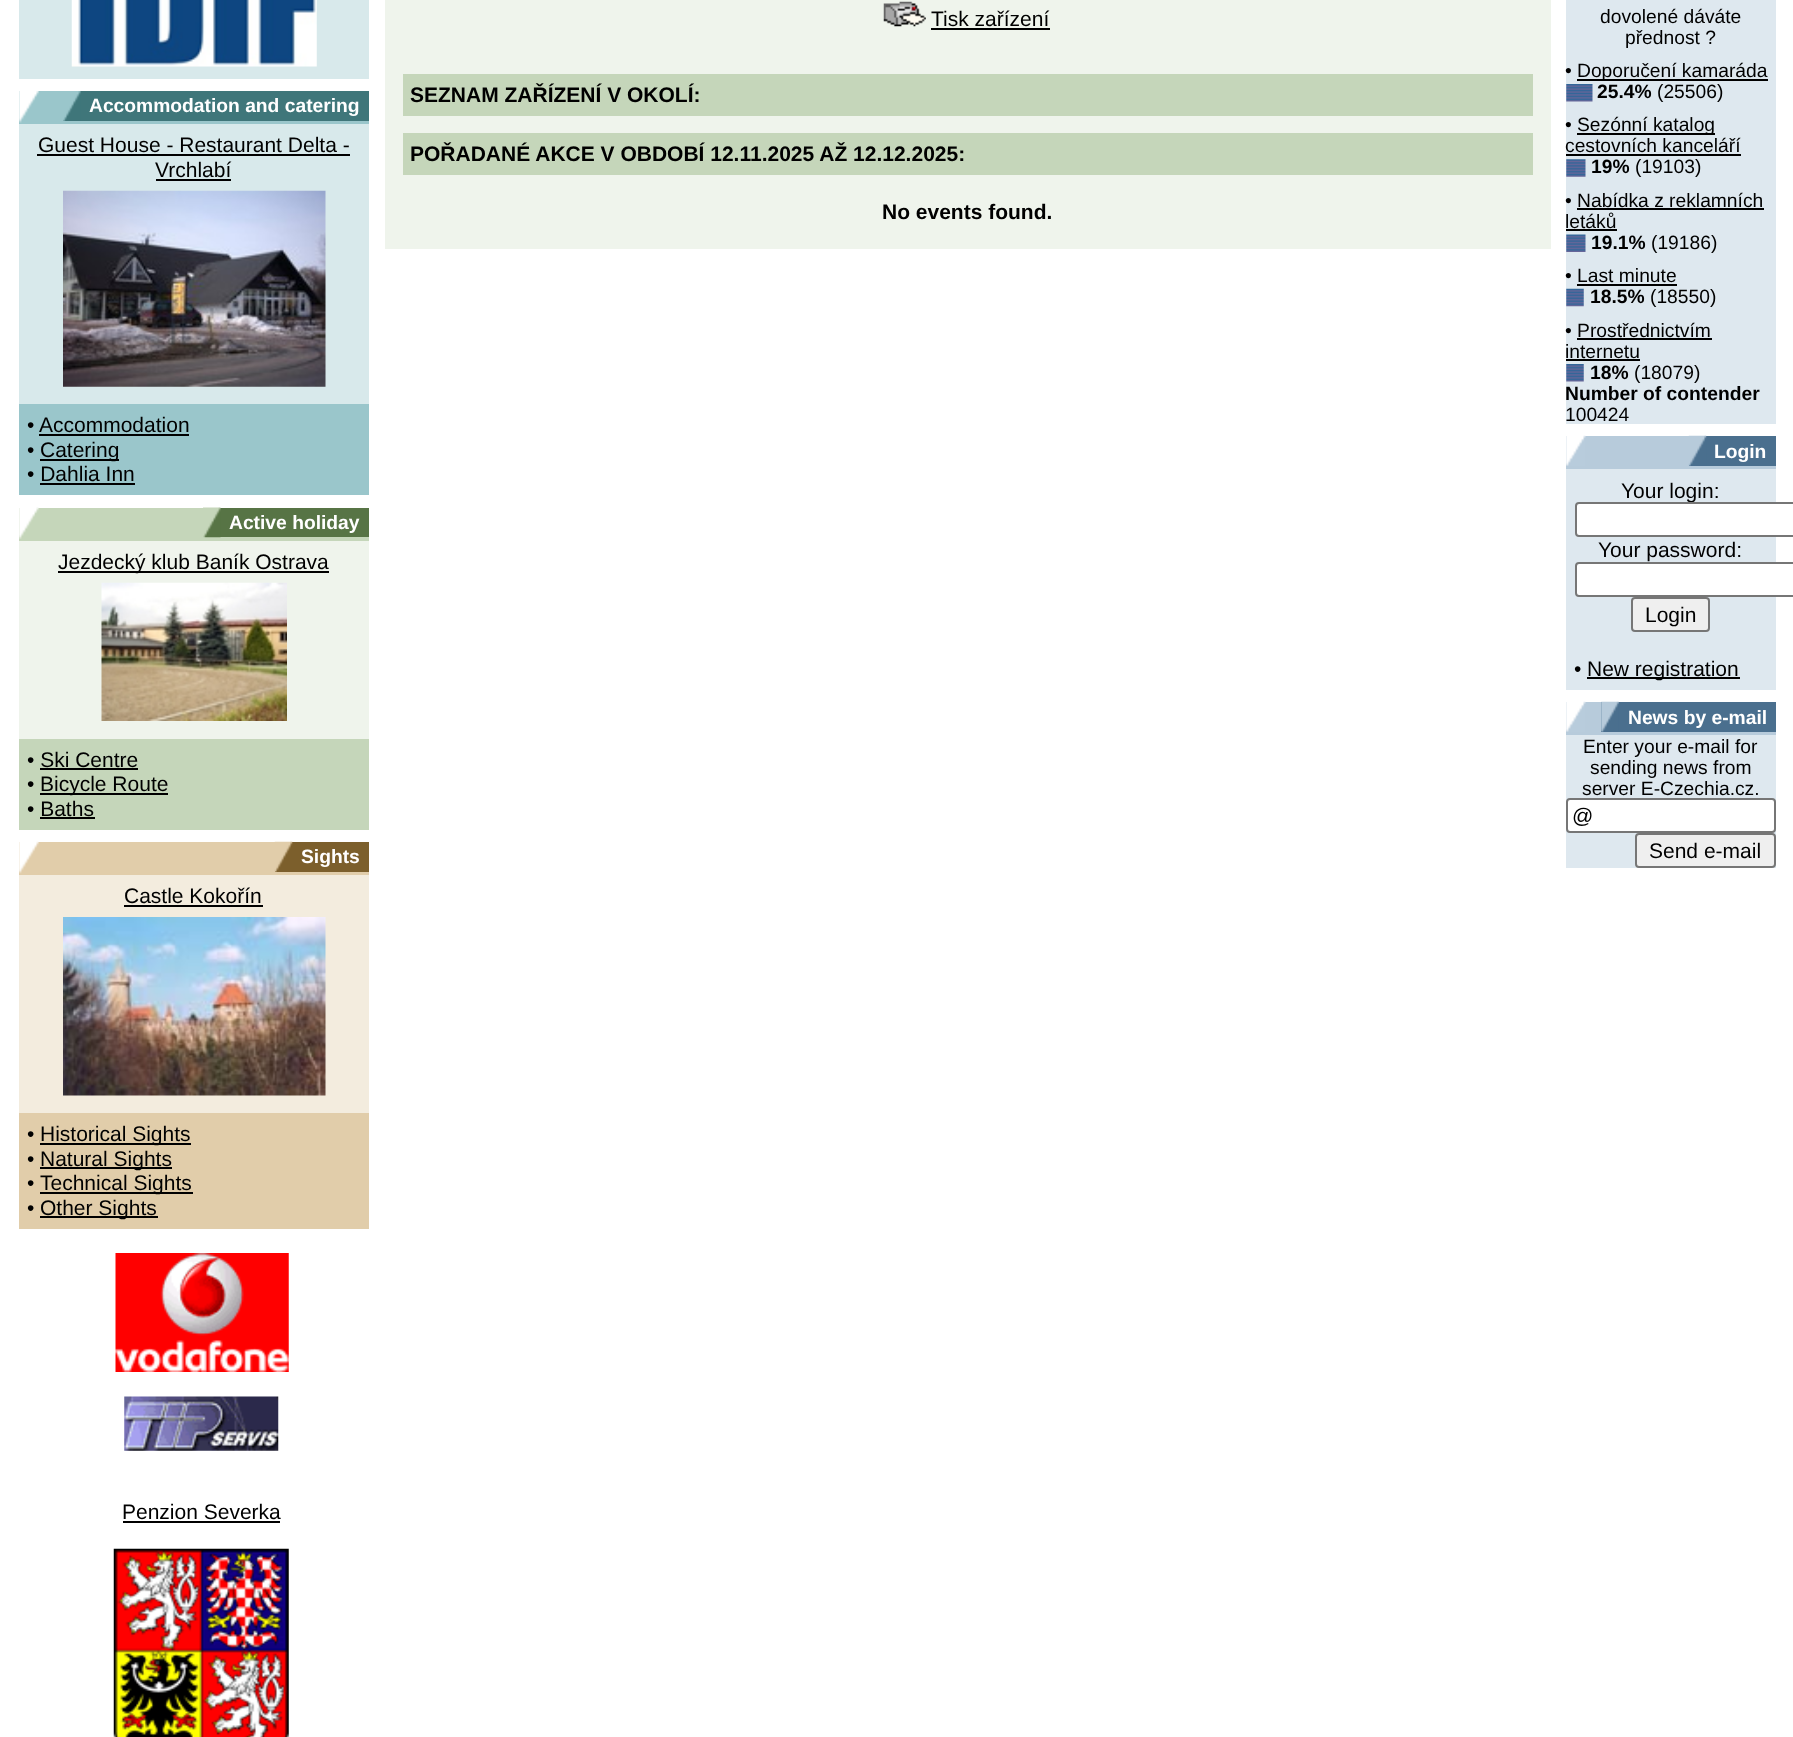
<svg xmlns="http://www.w3.org/2000/svg" width="1793" height="1737" viewBox="0 0 1793 1737">
  <rect width="100%" height="100%" fill="rgb(255,255,255)"/>
  <rect x="19" y="0" width="350" height="79" fill="rgb(216,233,235)"/>
  <image x="71" y="0" width="246" height="67" href="pic1.png"/>
  <rect x="19" y="124" width="350" height="280" fill="rgb(216,233,235)"/>
  <rect x="19" y="91" width="350" height="33" fill="rgb(154,198,203)"/>
  <image x="19" y="91" width="20" height="32" href="pic2.png"/>
  <rect x="63" y="91" width="306" height="30" fill="rgb(63,118,122)"/>
  <image x="63" y="91" width="18" height="30" href="pic3.png"/>
  <text x="89" y="112" font-family="Liberation Sans" font-size="19.25" font-weight="bold" fill="rgb(255,255,255)">Accommodation and catering</text>
  <text x="38" y="152" font-family="Liberation Sans" font-size="21" fill="rgb(0,0,0)">Guest House - Restaurant Delta -</text>
  <rect x="37" y="154" width="313" height="2" fill="rgb(0,0,0)"/>
  <text x="155" y="177" font-family="Liberation Sans" font-size="21" fill="rgb(0,0,0)">Vrchlabí</text>
  <rect x="156" y="179" width="75" height="2" fill="rgb(0,0,0)"/>
  <image x="63" y="190" width="263" height="197" href="pic4.png"/>
  <rect x="19" y="404" width="350" height="91" fill="rgb(154,198,203)"/>
  <g font-family="Liberation Sans" font-size="21" fill="rgb(0,0,0)">
    <text x="27" y="432">•</text>
    <text x="39" y="432">Accommodation</text>
  </g>
  <rect x="39" y="434" width="150" height="2" fill="rgb(0,0,0)"/>
  <text x="27" y="457" font-family="Liberation Sans" font-size="21" fill="rgb(0,0,0)">•</text>
  <rect x="40" y="459" width="79" height="2" fill="rgb(0,0,0)"/>
  <g font-family="Liberation Sans" font-size="21" fill="rgb(0,0,0)">
    <text x="40" y="457">Catering</text>
    <text x="27" y="481">• Dahlia Inn</text>
  </g>
  <rect x="40" y="483" width="95" height="2" fill="rgb(0,0,0)"/>
  <rect x="19" y="541" width="350" height="198" fill="rgb(239,244,236)"/>
  <rect x="19" y="508" width="350" height="33" fill="rgb(197,214,186)"/>
  <image x="19" y="507" width="20" height="32" href="pic5.png"/>
  <rect x="220" y="508" width="149" height="29" fill="rgb(87,116,69)"/>
  <image x="203" y="507" width="18" height="31" href="pic6.png"/>
  <text x="229" y="529" font-family="Liberation Sans" font-size="19.25" font-weight="bold" fill="rgb(255,255,255)">Active holiday</text>
  <rect x="58" y="571" width="271" height="2" fill="rgb(0,0,0)"/>
  <text x="58" y="569" font-family="Liberation Sans" font-size="21" fill="rgb(0,0,0)">Jezdecký klub Baník Ostrava</text>
  <image x="101" y="582" width="186" height="139" href="pic7.png"/>
  <rect x="19" y="739" width="350" height="91" fill="rgb(197,214,186)"/>
  <text x="27" y="767" font-family="Liberation Sans" font-size="21" fill="rgb(0,0,0)">• Ski Centre</text>
  <rect x="40" y="768" width="98" height="2" fill="rgb(0,0,0)"/>
  <text x="27" y="791" font-family="Liberation Sans" font-size="21" fill="rgb(0,0,0)">•</text>
  <rect x="40" y="793" width="128" height="2" fill="rgb(0,0,0)"/>
  <g font-family="Liberation Sans" font-size="21" fill="rgb(0,0,0)">
    <text x="40" y="791">Bicycle Route</text>
    <text x="27" y="816">• Baths</text>
  </g>
  <rect x="40" y="817" width="55" height="2" fill="rgb(0,0,0)"/>
  <rect x="19" y="875" width="350" height="238" fill="rgb(243,236,222)"/>
  <rect x="19" y="842" width="350" height="33" fill="rgb(225,205,170)"/>
  <image x="19" y="841" width="20" height="33" href="pic8.png"/>
  <rect x="275" y="842" width="94" height="30" fill="rgb(124,95,44)"/>
  <image x="274" y="841" width="19" height="31" href="pic9.png"/>
  <text x="301" y="863" font-family="Liberation Sans" font-size="19.25" font-weight="bold" fill="rgb(255,255,255)">Sights</text>
  <text x="124" y="903" font-family="Liberation Sans" font-size="21" fill="rgb(0,0,0)">Castle Kokořín</text>
  <rect x="124" y="905" width="139" height="2" fill="rgb(0,0,0)"/>
  <image x="63" y="917" width="263" height="179" href="pic10.png"/>
  <rect x="19" y="1113" width="350" height="116" fill="rgb(225,205,170)"/>
  <text x="27" y="1141" font-family="Liberation Sans" font-size="21" fill="rgb(0,0,0)">•</text>
  <rect x="40" y="1143" width="151" height="2" fill="rgb(0,0,0)"/>
  <g font-family="Liberation Sans" font-size="21" fill="rgb(0,0,0)">
    <text x="40" y="1141">Historical Sights</text>
    <text x="27" y="1166">•</text>
  </g>
  <rect x="40" y="1167" width="132" height="2" fill="rgb(0,0,0)"/>
  <g font-family="Liberation Sans" font-size="21" fill="rgb(0,0,0)">
    <text x="40" y="1166">Natural Sights</text>
    <text x="27" y="1190">•</text>
  </g>
  <rect x="40" y="1192" width="153" height="2" fill="rgb(0,0,0)"/>
  <g font-family="Liberation Sans" font-size="21" fill="rgb(0,0,0)">
    <text x="40" y="1190">Technical Sights</text>
    <text x="27" y="1215">•</text>
  </g>
  <rect x="40" y="1216" width="118" height="2" fill="rgb(0,0,0)"/>
  <text x="40" y="1215" font-family="Liberation Sans" font-size="21" fill="rgb(0,0,0)">Other Sights</text>
  <image x="115" y="1253" width="174" height="119" href="pic11.png"/>
  <image x="124" y="1396" width="155" height="55" href="pic12.png"/>
  <text x="122" y="1519" font-family="Liberation Sans" font-size="21" fill="rgb(0,0,0)">Penzion Severka</text>
  <rect x="123" y="1521" width="157" height="2" fill="rgb(0,0,0)"/>
  <image x="113" y="1548" width="176" height="189" href="pic13.png"/>
  <rect x="385" y="0" width="1166" height="249" fill="rgb(239,244,236)"/>
  <image x="883" y="1" width="43" height="26" href="pic14.png"/>
  <text x="931" y="26" font-family="Liberation Sans" font-size="21" fill="rgb(0,0,0)">Tisk zařízení</text>
  <rect x="931" y="28" width="119" height="2" fill="rgb(0,0,0)"/>
  <rect x="403" y="74" width="1130" height="42" fill="rgb(197,214,186)"/>
  <text x="410" y="102" font-family="Liberation Sans" font-size="21" font-weight="bold" fill="rgb(0,0,0)">SEZNAM ZAŘÍZENÍ V OKOLÍ:</text>
  <rect x="403" y="133" width="1130" height="42" fill="rgb(197,214,186)"/>
  <g font-family="Liberation Sans" font-size="21" font-weight="bold" fill="rgb(0,0,0)">
    <text x="410" y="161">POŘADANÉ AKCE V OBDOBÍ 12.11.2025 AŽ 12.12.2025:</text>
    <text x="882" y="219">No events found.</text>
  </g>
  <rect x="1566" y="0" width="210" height="424" fill="rgb(222,232,239)"/>
  <g font-family="Liberation Sans" font-size="19.25" fill="rgb(0,0,0)">
    <text x="1600" y="23">dovolené dáváte</text>
    <text x="1625" y="44">přednost ?</text>
    <text x="1565" y="77">•</text>
  </g>
  <rect x="1577" y="79" width="191" height="2" fill="rgb(0,0,0)"/>
  <text x="1577" y="77" font-family="Liberation Sans" font-size="19.25" fill="rgb(0,0,0)">Doporučení kamaráda</text>
  <image x="1566" y="84" width="27" height="18" href="pic15.png"/>
  <text x="1597" y="98" font-family="Liberation Sans" font-size="19.25" font-weight="bold" fill="rgb(0,0,0)">25.4%</text>
  <g font-family="Liberation Sans" font-size="19.25" fill="rgb(0,0,0)">
    <text x="1657" y="98">(25506)</text>
    <text x="1565" y="131">•</text>
  </g>
  <rect x="1577" y="133" width="138" height="2" fill="rgb(0,0,0)"/>
  <g font-family="Liberation Sans" font-size="19.25" fill="rgb(0,0,0)">
    <text x="1577" y="131">Sezónní katalog</text>
    <text x="1565" y="152">cestovních kanceláří</text>
  </g>
  <rect x="1566" y="154" width="175" height="2" fill="rgb(0,0,0)"/>
  <image x="1566" y="159" width="20" height="18" href="pic16.png"/>
  <text x="1591" y="173" font-family="Liberation Sans" font-size="19.25" font-weight="bold" fill="rgb(0,0,0)">19%</text>
  <g font-family="Liberation Sans" font-size="19.25" fill="rgb(0,0,0)">
    <text x="1635" y="173">(19103)</text>
    <text>
      <tspan x="1565" y="207">• Nabídka z reklamních</tspan>
      <tspan x="1565" y="228">letáků</tspan>
    </text>
  </g>
  <rect x="1577" y="208" width="187" height="2" fill="rgb(0,0,0)"/>
  <rect x="1566" y="229" width="51" height="2" fill="rgb(0,0,0)"/>
  <image x="1566" y="234" width="20" height="18" href="pic17.png"/>
  <text x="1591" y="249" font-family="Liberation Sans" font-size="19.25" font-weight="bold" fill="rgb(0,0,0)">19.1%</text>
  <g font-family="Liberation Sans" font-size="19.25" fill="rgb(0,0,0)">
    <text x="1651" y="249">(19186)</text>
    <text x="1565" y="282">• Last minute</text>
  </g>
  <rect x="1577" y="284" width="100" height="2" fill="rgb(0,0,0)"/>
  <image x="1566" y="288" width="18" height="19" href="pic18.png"/>
  <text x="1590" y="303" font-family="Liberation Sans" font-size="19.25" font-weight="bold" fill="rgb(0,0,0)">18.5%</text>
  <g font-family="Liberation Sans" font-size="19.25" fill="rgb(0,0,0)">
    <text x="1650" y="303">(18550)</text>
    <text>
      <tspan x="1565" y="337">• Prostřednictvím</tspan>
      <tspan x="1565" y="358">internetu</tspan>
    </text>
  </g>
  <rect x="1577" y="338" width="135" height="2" fill="rgb(0,0,0)"/>
  <rect x="1566" y="359" width="74" height="2" fill="rgb(0,0,0)"/>
  <image x="1566" y="364" width="18" height="18" href="pic19.png"/>
  <text x="1590" y="379" font-family="Liberation Sans" font-size="19.25" font-weight="bold" fill="rgb(0,0,0)">18%</text>
  <text x="1634" y="379" font-family="Liberation Sans" font-size="19.25" fill="rgb(0,0,0)">(18079)</text>
  <text x="1565" y="400" font-family="Liberation Sans" font-size="19.25" font-weight="bold" fill="rgb(0,0,0)">Number of contender</text>
  <text x="1565" y="421" font-family="Liberation Sans" font-size="19.25" fill="rgb(0,0,0)">100424</text>
  <rect x="1566" y="469" width="210" height="221" fill="rgb(222,232,239)"/>
  <rect x="1566" y="436" width="210" height="33" fill="rgb(183,203,219)"/>
  <image x="1566" y="435" width="20" height="31" href="pic20.png"/>
  <rect x="1689" y="436" width="87" height="30" fill="rgb(74,111,142)"/>
  <image x="1688" y="435" width="19" height="31" href="pic21.png"/>
  <text x="1714" y="458" font-family="Liberation Sans" font-size="19.25" font-weight="bold" fill="rgb(255,255,255)">Login</text>
  <text x="1621" y="498" font-family="Liberation Sans" font-size="21" fill="rgb(0,0,0)">Your login:</text>
  <rect x="1576" y="503" width="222" height="33" rx="3" fill="rgb(255,255,255)" stroke="rgb(118,118,118)" stroke-width="2"/>
  <text x="1598" y="557" font-family="Liberation Sans" font-size="21" fill="rgb(0,0,0)">Your password:</text>
  <rect x="1576" y="563" width="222" height="33" rx="3" fill="rgb(255,255,255)" stroke="rgb(118,118,118)" stroke-width="2"/>
  <rect x="1632" y="598" width="77" height="33" rx="3" fill="rgb(239,239,239)" stroke="rgb(118,118,118)" stroke-width="2"/>
  <g font-family="Liberation Sans" font-size="21" fill="rgb(0,0,0)">
    <text x="1645" y="622">Login</text>
    <text x="1574" y="676">•</text>
  </g>
  <rect x="1587" y="677" width="153" height="2" fill="rgb(0,0,0)"/>
  <text x="1587" y="676" font-family="Liberation Sans" font-size="21" fill="rgb(0,0,0)">New registration</text>
  <rect x="1566" y="735" width="210" height="133" fill="rgb(222,232,239)"/>
  <rect x="1566" y="702" width="210" height="33" fill="rgb(183,203,219)"/>
  <image x="1566" y="701" width="20" height="31" href="pic20.png"/>
  <rect x="1601" y="702" width="175" height="30" fill="rgb(74,111,142)"/>
  <image x="1601" y="701" width="18" height="31" href="pic22.png"/>
  <text x="1628" y="724" font-family="Liberation Sans" font-size="19.25" font-weight="bold" fill="rgb(255,255,255)">News by e-mail</text>
  <g font-family="Liberation Sans" font-size="19.25" fill="rgb(0,0,0)">
    <text x="1583" y="753">Enter your e-mail for</text>
    <text x="1590" y="774">sending news from</text>
    <text x="1582" y="795">server E-Czechia.cz.</text>
  </g>
  <rect x="1567" y="799" width="208" height="33" rx="3" fill="rgb(255,255,255)" stroke="rgb(118,118,118)" stroke-width="2"/>
  <text x="1572" y="823" font-family="Liberation Sans" font-size="21" fill="rgb(0,0,0)">@</text>
  <rect x="1636" y="834" width="139" height="33" rx="3" fill="rgb(239,239,239)" stroke="rgb(118,118,118)" stroke-width="2"/>
  <text x="1649" y="858" font-family="Liberation Sans" font-size="21" fill="rgb(0,0,0)">Send e-mail</text>
</svg>
